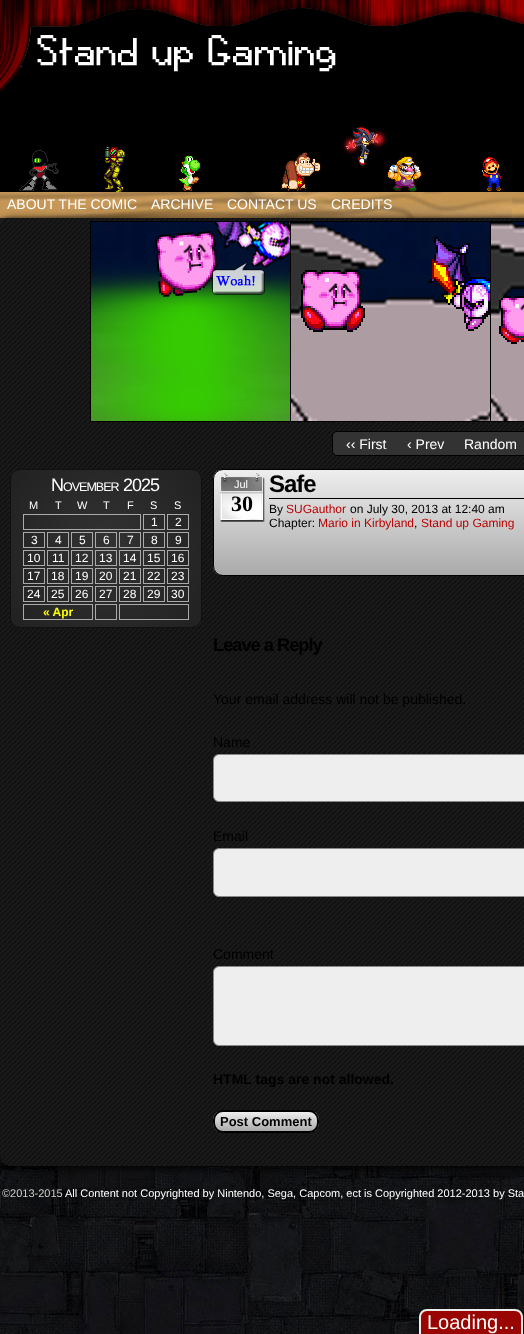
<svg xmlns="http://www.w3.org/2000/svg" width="524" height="1334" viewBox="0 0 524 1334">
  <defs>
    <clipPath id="clip1"><rect x="10" y="469" width="192" height="159" rx="10"/></clipPath>
    <radialGradient id="g1" gradientUnits="userSpaceOnUse" cx="106" cy="549" r="350"><stop offset="0" stop-color="rgb(51,51,51)"/><stop offset="1" stop-color="rgb(0,0,0)"/></radialGradient>
    <clipPath id="clip2"><rect x="213" y="469" width="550" height="107" rx="10"/></clipPath>
    <linearGradient id="g2" gradientUnits="userSpaceOnUse" x1="214" y1="470" x2="214" y2="575"><stop offset="0" stop-color="rgb(238,238,238)"/><stop offset="1" stop-color="rgb(170,170,170)"/></linearGradient>
    <clipPath id="clip3"><rect x="213" y="1110" width="106" height="23" rx="10"/></clipPath>
    <linearGradient id="g3" gradientUnits="userSpaceOnUse" x1="215" y1="1112" x2="215" y2="1131"><stop offset="0" stop-color="rgb(238,238,238)"/><stop offset="1" stop-color="rgb(170,170,170)"/></linearGradient>
  </defs>
  <rect width="100%" height="100%" fill="rgb(255,255,255)"/>
  <image x="0" y="218" width="524" height="1116" href="pic1.png"/>
  <image x="0" y="218" width="10" height="10" href="pic2.png"/>
  <image x="0" y="0" width="524" height="192" href="pic3.png"/>
  <image x="0" y="192" width="524" height="26" href="pic4.png"/>
  <rect x="1" y="220" width="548" height="948" rx="10" fill="rgb(0,0,0)" filter="blur(5px)"/>
  <g font-family="Liberation Sans" font-size="14" fill="rgb(255,255,255)">
    <text x="7" y="209">ABOUT THE COMIC</text>
    <text x="151" y="209">ARCHIVE</text>
    <text x="227" y="209">CONTACT US</text>
    <text x="331" y="209">CREDITS</text>
  </g>
  <rect x="0" y="218" width="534" height="948" rx="10" fill="rgb(17,17,17)"/>
  <image x="0" y="218" width="524" height="948" href="pic5.png"/>
  <image x="90" y="221" width="434" height="201" href="pic6.png"/>
  <rect x="332.5" y="431.5" width="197" height="24" rx="4.5" fill="rgb(51,51,51)" stroke="rgb(0,0,0)"/>
  <g font-family="Liberation Sans" font-size="14" fill="rgb(255,255,255)">
    <text x="346" y="449">‹‹ First</text>
    <text x="407" y="449">‹ Prev</text>
    <text x="464" y="449">Random</text>
  </g>
  <g clip-path="url(#clip1)">
    <rect x="11" y="470" width="190" height="157" fill="url(#g1)"/>
  </g>
  <rect x="10.5" y="469.5" width="191" height="158" rx="9.5" fill="none" stroke="rgb(17,17,17)"/>
  <text x="51" y="491" font-family="Liberation Sans" font-size="18" letter-spacing="-1" fill="rgb(255,255,255)">N</text>
  <text x="63" y="491" font-family="Liberation Sans" font-size="12.5" letter-spacing="-1" fill="rgb(255,255,255)">OVEMBER</text>
  <text x="123" y="491" font-family="Liberation Sans" font-size="18" letter-spacing="-1" fill="rgb(255,255,255)">2025</text>
  <g font-family="Liberation Sans" font-size="11" fill="rgb(255,255,255)">
    <text x="29" y="509">M</text>
    <text x="55" y="509">T</text>
    <text x="77" y="509">W</text>
    <text x="103" y="509">T</text>
    <text x="127" y="509">F</text>
    <text x="150" y="509">S</text>
    <text x="174" y="509">S</text>
  </g>
  <rect x="23.5" y="514.5" width="117" height="15" fill="none" stroke="rgb(170,170,170)"/>
  <rect x="143.5" y="514.5" width="21" height="15" fill="none" stroke="rgb(170,170,170)"/>
  <text x="151" y="526" font-family="Liberation Sans" font-size="12" fill="rgb(255,255,255)">1</text>
  <rect x="167.5" y="514.5" width="21" height="15" fill="none" stroke="rgb(170,170,170)"/>
  <text x="175" y="526" font-family="Liberation Sans" font-size="12" fill="rgb(255,255,255)">2</text>
  <rect x="23.5" y="532.5" width="21" height="15" fill="none" stroke="rgb(170,170,170)"/>
  <text x="31" y="544" font-family="Liberation Sans" font-size="12" fill="rgb(255,255,255)">3</text>
  <rect x="47.5" y="532.5" width="21" height="15" fill="none" stroke="rgb(170,170,170)"/>
  <text x="55" y="544" font-family="Liberation Sans" font-size="12" fill="rgb(255,255,255)">4</text>
  <rect x="71.5" y="532.5" width="21" height="15" fill="none" stroke="rgb(170,170,170)"/>
  <text x="79" y="544" font-family="Liberation Sans" font-size="12" fill="rgb(255,255,255)">5</text>
  <rect x="95.5" y="532.5" width="21" height="15" fill="none" stroke="rgb(170,170,170)"/>
  <text x="103" y="544" font-family="Liberation Sans" font-size="12" fill="rgb(255,255,255)">6</text>
  <rect x="119.5" y="532.5" width="21" height="15" fill="none" stroke="rgb(170,170,170)"/>
  <text x="127" y="544" font-family="Liberation Sans" font-size="12" fill="rgb(255,255,255)">7</text>
  <rect x="143.5" y="532.5" width="21" height="15" fill="none" stroke="rgb(170,170,170)"/>
  <text x="151" y="544" font-family="Liberation Sans" font-size="12" fill="rgb(255,255,255)">8</text>
  <rect x="167.5" y="532.5" width="21" height="15" fill="none" stroke="rgb(170,170,170)"/>
  <text x="175" y="544" font-family="Liberation Sans" font-size="12" fill="rgb(255,255,255)">9</text>
  <rect x="23.5" y="550.5" width="21" height="15" fill="none" stroke="rgb(170,170,170)"/>
  <text x="27" y="562" font-family="Liberation Sans" font-size="12" fill="rgb(255,255,255)">10</text>
  <rect x="47.5" y="550.5" width="21" height="15" fill="none" stroke="rgb(170,170,170)"/>
  <text x="52" y="562" font-family="Liberation Sans" font-size="12" fill="rgb(255,255,255)">11</text>
  <rect x="71.5" y="550.5" width="21" height="15" fill="none" stroke="rgb(170,170,170)"/>
  <text x="75" y="562" font-family="Liberation Sans" font-size="12" fill="rgb(255,255,255)">12</text>
  <rect x="95.5" y="550.5" width="21" height="15" fill="none" stroke="rgb(170,170,170)"/>
  <text x="99" y="562" font-family="Liberation Sans" font-size="12" fill="rgb(255,255,255)">13</text>
  <rect x="119.5" y="550.5" width="21" height="15" fill="none" stroke="rgb(170,170,170)"/>
  <text x="123" y="562" font-family="Liberation Sans" font-size="12" fill="rgb(255,255,255)">14</text>
  <rect x="143.5" y="550.5" width="21" height="15" fill="none" stroke="rgb(170,170,170)"/>
  <text x="147" y="562" font-family="Liberation Sans" font-size="12" fill="rgb(255,255,255)">15</text>
  <rect x="167.5" y="550.5" width="21" height="15" fill="none" stroke="rgb(170,170,170)"/>
  <text x="171" y="562" font-family="Liberation Sans" font-size="12" fill="rgb(255,255,255)">16</text>
  <rect x="23.5" y="568.5" width="21" height="15" fill="none" stroke="rgb(170,170,170)"/>
  <text x="27" y="580" font-family="Liberation Sans" font-size="12" fill="rgb(255,255,255)">17</text>
  <rect x="47.5" y="568.5" width="21" height="15" fill="none" stroke="rgb(170,170,170)"/>
  <text x="51" y="580" font-family="Liberation Sans" font-size="12" fill="rgb(255,255,255)">18</text>
  <rect x="71.5" y="568.5" width="21" height="15" fill="none" stroke="rgb(170,170,170)"/>
  <text x="75" y="580" font-family="Liberation Sans" font-size="12" fill="rgb(255,255,255)">19</text>
  <rect x="95.5" y="568.5" width="21" height="15" fill="none" stroke="rgb(170,170,170)"/>
  <text x="99" y="580" font-family="Liberation Sans" font-size="12" fill="rgb(255,255,255)">20</text>
  <rect x="119.5" y="568.5" width="21" height="15" fill="none" stroke="rgb(170,170,170)"/>
  <text x="123" y="580" font-family="Liberation Sans" font-size="12" fill="rgb(255,255,255)">21</text>
  <rect x="143.5" y="568.5" width="21" height="15" fill="none" stroke="rgb(170,170,170)"/>
  <text x="147" y="580" font-family="Liberation Sans" font-size="12" fill="rgb(255,255,255)">22</text>
  <rect x="167.5" y="568.5" width="21" height="15" fill="none" stroke="rgb(170,170,170)"/>
  <text x="171" y="580" font-family="Liberation Sans" font-size="12" fill="rgb(255,255,255)">23</text>
  <rect x="23.5" y="586.5" width="21" height="15" fill="none" stroke="rgb(170,170,170)"/>
  <text x="27" y="598" font-family="Liberation Sans" font-size="12" fill="rgb(255,255,255)">24</text>
  <rect x="47.5" y="586.5" width="21" height="15" fill="none" stroke="rgb(170,170,170)"/>
  <text x="51" y="598" font-family="Liberation Sans" font-size="12" fill="rgb(255,255,255)">25</text>
  <rect x="71.5" y="586.5" width="21" height="15" fill="none" stroke="rgb(170,170,170)"/>
  <text x="75" y="598" font-family="Liberation Sans" font-size="12" fill="rgb(255,255,255)">26</text>
  <rect x="95.5" y="586.5" width="21" height="15" fill="none" stroke="rgb(170,170,170)"/>
  <text x="99" y="598" font-family="Liberation Sans" font-size="12" fill="rgb(255,255,255)">27</text>
  <rect x="119.5" y="586.5" width="21" height="15" fill="none" stroke="rgb(170,170,170)"/>
  <text x="123" y="598" font-family="Liberation Sans" font-size="12" fill="rgb(255,255,255)">28</text>
  <rect x="143.5" y="586.5" width="21" height="15" fill="none" stroke="rgb(170,170,170)"/>
  <text x="147" y="598" font-family="Liberation Sans" font-size="12" fill="rgb(255,255,255)">29</text>
  <rect x="167.5" y="586.5" width="21" height="15" fill="none" stroke="rgb(170,170,170)"/>
  <text x="171" y="598" font-family="Liberation Sans" font-size="12" fill="rgb(255,255,255)">30</text>
  <rect x="23.5" y="604.5" width="69" height="15" fill="none" stroke="rgb(170,170,170)"/>
  <text x="43" y="616" font-family="Liberation Sans" font-size="12" font-weight="bold" fill="rgb(252,255,0)">« Apr</text>
  <rect x="95.5" y="604.5" width="21" height="15" fill="none" stroke="rgb(170,170,170)"/>
  <rect x="119.5" y="604.5" width="69" height="15" fill="none" stroke="rgb(170,170,170)"/>
  <g clip-path="url(#clip2)">
    <rect x="213" y="470" width="311" height="105" fill="url(#g2)"/>
  </g>
  <rect x="213.5" y="469.5" width="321" height="106" rx="9.5" fill="none" stroke="rgb(0,0,0)"/>
  <image x="220" y="473" width="45" height="49" href="pic7.png"/>
  <text x="234" y="488" font-family="Liberation Sans" font-size="11" fill="rgb(255,255,255)">Jul</text>
  <text x="231" y="511" font-family="Liberation Serif" font-size="22" font-weight="bold" fill="rgb(0,0,0)">30</text>
  <rect x="269" y="498" width="255" height="1" fill="rgb(0,0,0)"/>
  <text x="269" y="492" font-family="Liberation Sans" font-size="24" font-weight="bold" letter-spacing="-1" fill="rgb(0,0,0)">Safe</text>
  <text x="269" y="513" font-family="Liberation Sans" font-size="12" fill="rgb(0,0,0)">By</text>
  <text x="286" y="513" font-family="Liberation Sans" font-size="12" fill="rgb(187,0,0)">SUGauthor</text>
  <g font-family="Liberation Sans" font-size="12" fill="rgb(0,0,0)">
    <text x="350" y="513">on July 30, 2013 at 12:40 am</text>
    <text x="269" y="527">Chapter:</text>
  </g>
  <text x="318" y="527" font-family="Liberation Sans" font-size="12" fill="rgb(187,0,0)">Mario in Kirbyland</text>
  <text x="414" y="527" font-family="Liberation Sans" font-size="12" fill="rgb(0,0,0)">,</text>
  <text x="421" y="527" font-family="Liberation Sans" font-size="12" fill="rgb(187,0,0)">Stand up Gaming</text>
  <text x="213" y="651" font-family="Liberation Sans" font-size="18.25" font-weight="bold" letter-spacing="-1" fill="rgb(0,0,0)">Leave a Reply</text>
  <g font-family="Liberation Sans" font-size="14" fill="rgb(0,0,0)">
    <text x="213" y="704">Your email address will not be published.</text>
    <text x="213" y="747">Name</text>
  </g>
  <rect x="213.5" y="754.5" width="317" height="47" rx="5.5" fill="rgb(238,238,238)" stroke="rgb(136,136,136)"/>
  <text x="213" y="841" font-family="Liberation Sans" font-size="14" fill="rgb(0,0,0)">Email</text>
  <rect x="213.5" y="848.5" width="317" height="48" rx="5.5" fill="rgb(238,238,238)" stroke="rgb(136,136,136)"/>
  <text x="213" y="959" font-family="Liberation Sans" font-size="14" fill="rgb(0,0,0)">Comment</text>
  <rect x="213.5" y="966.5" width="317" height="79" rx="5.5" fill="rgb(238,238,238)" stroke="rgb(136,136,136)"/>
  <text x="213" y="1084" font-family="Liberation Sans" font-size="14" font-weight="bold" fill="rgb(0,0,0)">HTML tags are not allowed.</text>
  <g clip-path="url(#clip3)">
    <rect x="213" y="1112" width="106" height="19" fill="url(#g3)"/>
  </g>
  <rect x="214" y="1111" width="104" height="21" rx="9" fill="none" stroke="rgb(0,0,0)" stroke-width="2"/>
  <text x="220" y="1126" font-family="Liberation Sans" font-size="13" font-weight="bold" fill="rgb(0,0,0)">Post Comment</text>
  <text x="2" y="1197" font-family="Liberation Sans" font-size="11" fill="rgb(204,204,204)">©2013-2015</text>
  <text x="65" y="1197" font-family="Liberation Sans" font-size="11" fill="rgb(255,255,255)">All Content not Copyrighted by Nintendo, Sega, Capcom, ect is Copyrighted 2012-2013 by Sta</text>
  <path d="M427 1310H515C519 1310 522 1313 522 1317V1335H420V1317C420 1313 423 1310 427 1310Z" fill="rgb(153,5,0)" stroke="rgb(235,235,235)" stroke-width="2"/>
  <text x="427" y="1329" font-family="Liberation Sans" font-size="20" fill="rgb(255,255,255)">Loading...</text>
</svg>
